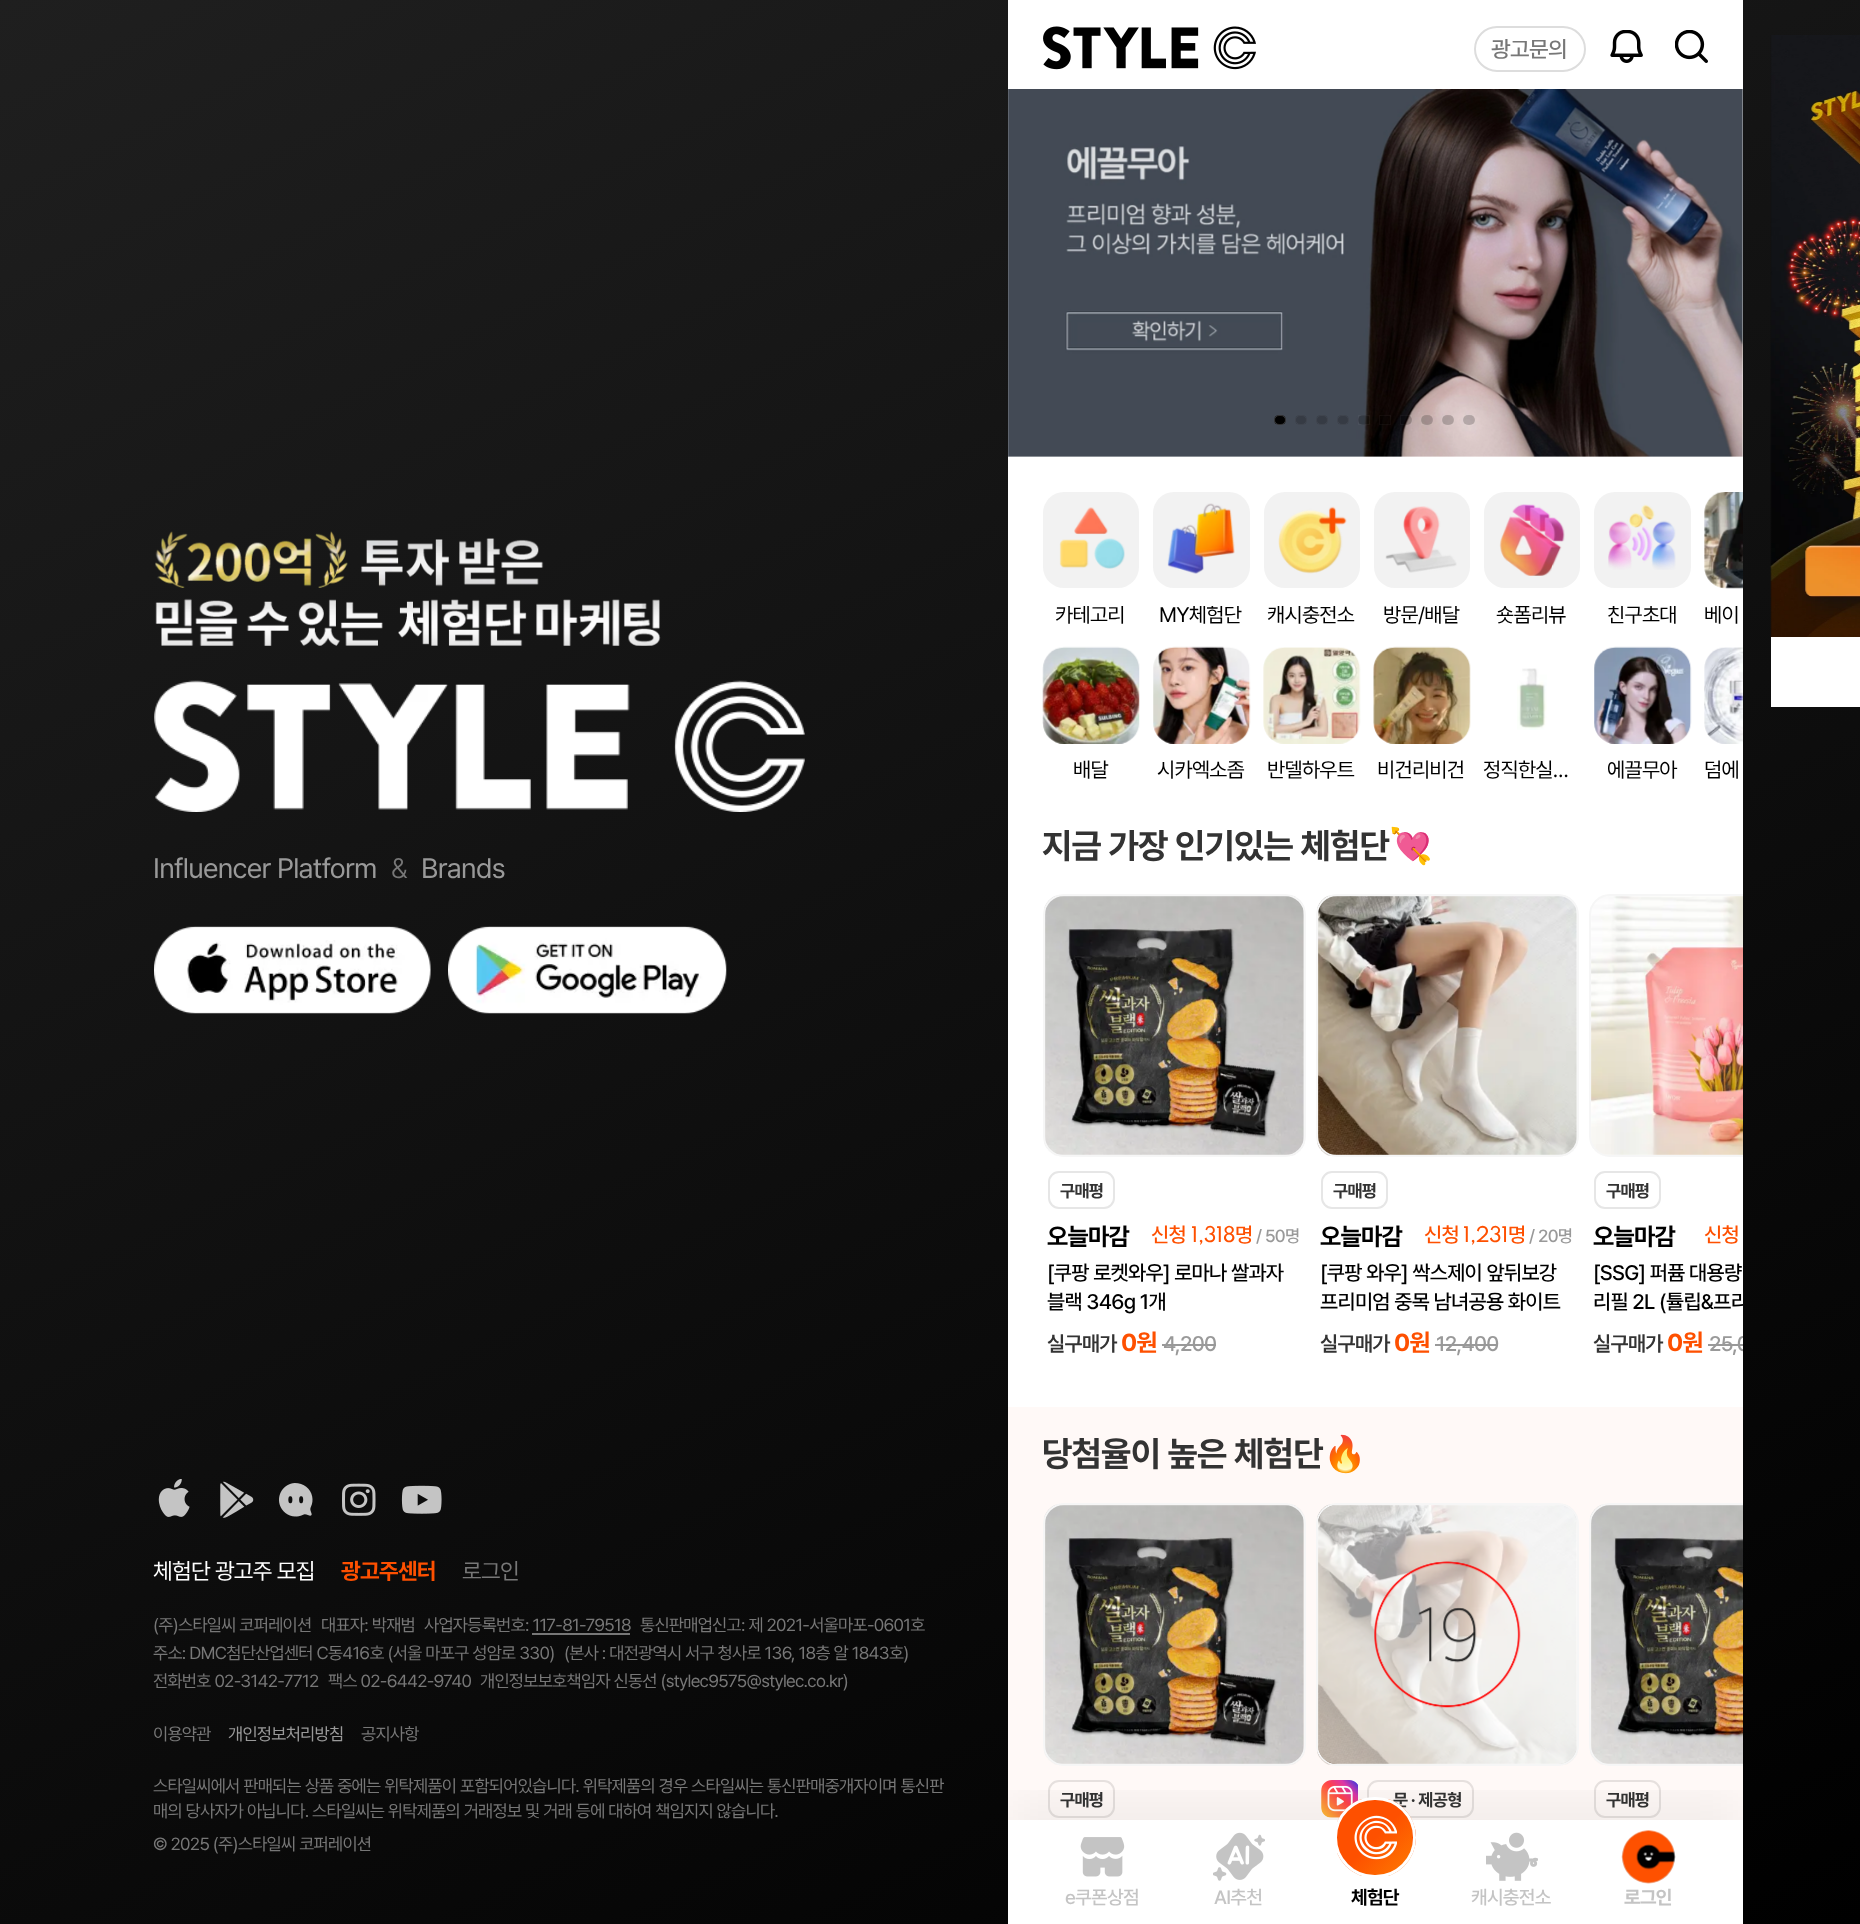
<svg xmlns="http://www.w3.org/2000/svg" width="1860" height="1924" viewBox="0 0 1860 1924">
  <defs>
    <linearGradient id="g1" gradientUnits="userSpaceOnUse" x1="1511" y1="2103" x2="349" y2="-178"><stop offset="0" stop-color="rgb(0,0,0)"/><stop offset="1" stop-color="rgb(31,31,31)"/></linearGradient>
    <clipPath id="clip1"><rect x="1043" y="606" width="96" height="21"/></clipPath>
    <clipPath id="clip2"><rect x="1153" y="606" width="97" height="21"/></clipPath>
    <clipPath id="clip3"><rect x="1264" y="606" width="96" height="21"/></clipPath>
    <clipPath id="clip4"><rect x="1374" y="606" width="96" height="21"/></clipPath>
    <clipPath id="clip5"><rect x="1484" y="606" width="96" height="21"/></clipPath>
    <clipPath id="clip6"><rect x="1594" y="606" width="97" height="21"/></clipPath>
    <clipPath id="clip7"><rect x="1705" y="606" width="38" height="21"/></clipPath>
    <clipPath id="clip8"><rect x="1008" y="894" width="735" height="478"/></clipPath>
    <clipPath id="clip9"><rect x="1594" y="1258" width="149" height="62"/></clipPath>
    <clipPath id="clip10"><rect x="1594" y="1330" width="149" height="25"/></clipPath>
    <clipPath id="clip11"><rect x="1008" y="1503" width="735" height="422"/></clipPath>
    <clipPath id="clip12"><rect x="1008" y="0" width="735" height="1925"/></clipPath>
    <clipPath id="clip13"><rect x="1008" y="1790" width="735" height="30"/></clipPath>
    <clipPath id="clip14"><rect x="1334" y="1797" width="82" height="81" rx="40.5"/></clipPath>
    <linearGradient id="g2" gradientUnits="userSpaceOnUse" x1="1337" y1="1800" x2="1413" y2="1875"><stop offset="0.5" stop-color="rgb(254,80,0)"/><stop offset="1" stop-color="rgb(253,123,1)"/></linearGradient>
    <linearGradient id="g3" gradientUnits="userSpaceOnUse" x1="1413" y1="1800" x2="1489" y2="1875"><stop offset="0.5" stop-color="rgb(254,80,0)"/><stop offset="1" stop-color="rgb(253,123,1)"/></linearGradient>
  </defs>
  <rect width="100%" height="100%" fill="rgb(255,255,255)"/>
  <rect x="0" y="0" width="1860" height="1924" fill="url(#g1)"/>
  <image x="155" y="531" width="506" height="115" href="pic1.png"/>
  <image x="154" y="680" width="651" height="132" href="pic2.png"/>
  <text x="153" y="878" font-family="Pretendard" font-size="28" letter-spacing="-0.7" fill="rgb(153,153,153)">Influencer Platform</text>
  <text x="391" y="878" font-family="Pretendard" font-size="28" font-weight="300" letter-spacing="-0.7" fill="rgb(119,119,119)">&amp;</text>
  <text x="421" y="878" font-family="Pretendard" font-size="28" letter-spacing="-0.7" fill="rgb(153,153,153)">Brands</text>
  <image x="154" y="926" width="277" height="88" href="pic3.png"/>
  <image x="448" y="926" width="279" height="88" href="pic4.png"/>
  <image x="158" y="1479" width="32" height="38" href="pic5.png"/>
  <image x="220" y="1481" width="34" height="37" href="pic6.png"/>
  <image x="279" y="1483" width="34" height="34" href="pic7.png"/>
  <image x="342" y="1483" width="34" height="33" href="pic8.png"/>
  <image x="401" y="1485" width="41" height="29" href="pic9.png"/>
  <text x="153" y="1579" font-family="Pretendard" font-size="22.75" letter-spacing="-0.7" fill="rgb(255,255,255)">체험단 광고주 모집</text>
  <text x="341" y="1579" font-family="Pretendard" font-size="22.75" font-weight="bold" letter-spacing="-0.7" fill="rgb(254,80,0)">광고주센터</text>
  <text x="462" y="1579" font-family="Pretendard" font-size="22.75" letter-spacing="-0.7" fill="rgb(119,119,119)">로그인</text>
  <g font-family="Pretendard" font-size="17.5" letter-spacing="-0.7" fill="rgb(119,119,119)">
    <text x="153" y="1631">(주)스타일씨 코퍼레이션</text>
    <text x="321" y="1631">대표자: 박재범</text>
    <text x="424" y="1631">사업자등록번호: 117-81-79518</text>
  </g>
  <rect x="532" y="1633" width="98" height="2" fill="rgb(119,119,119)"/>
  <g font-family="Pretendard" font-size="17.5" letter-spacing="-0.7" fill="rgb(119,119,119)">
    <text x="640" y="1631">통신판매업신고: 제 2021-서울마포-0601호</text>
    <text x="153" y="1659">주소: DMC첨단산업센터 C동416호 (서울 마포구 성암로 330)</text>
    <text x="564" y="1659">(본사 : 대전광역시 서구 청사로 136, 18층 알 1843호)</text>
    <text x="153" y="1687">전화번호 02-3142-7712</text>
    <text x="328" y="1687">팩스 02-6442-9740</text>
    <text x="480" y="1687">개인정보보호책임자 신동선 (stylec9575@stylec.co.kr)</text>
    <text x="153" y="1740">이용약관</text>
  </g>
  <text x="228" y="1740" font-family="Pretendard" font-size="17.5" letter-spacing="-0.7" fill="rgb(153,153,153)">개인정보처리방침</text>
  <g font-family="Pretendard" font-size="17.5" letter-spacing="-0.7" fill="rgb(119,119,119)">
    <text x="361" y="1740">공지사항</text>
    <text>
      <tspan x="153" y="1792">스타일씨에서 판매되는 상품 중에는 위탁제품이 포함되어있습니다. 위탁제품의 경우 스타일씨는 통신판매중개자이며 통신판</tspan>
      <tspan x="153" y="1817">매의 당사자가 아닙니다. 스타일씨는 위탁제품의 거래정보 및 거래 등에 대하여 책임지지 않습니다.</tspan>
      <tspan x="153" y="1850">© 2025 (주)스타일씨 코퍼레이션</tspan>
    </text>
  </g>
  <rect x="1008" y="0" width="735" height="1407" fill="rgb(255,255,255)"/>
  <image x="1043" y="26" width="213" height="44" href="pic10.png"/>
  <rect x="1475" y="27" width="110" height="44" rx="22" fill="none" stroke="rgb(221,221,221)" stroke-width="2"/>
  <text x="1491" y="57" font-family="Pretendard" font-size="22.75" font-weight="500" letter-spacing="-0.7" fill="rgb(119,119,119)">광고문의</text>
  <image x="1610" y="30" width="33" height="33" href="pic11.png"/>
  <image x="1675" y="30" width="33" height="33" href="pic12.png"/>
  <image x="1008" y="89" width="1" height="368" href="pic13.png"/>
  <image x="1008" y="89" width="735" height="368" href="pic14.png"/>
  <image x="1742" y="89" width="1" height="368" href="pic15.png"/>
  <rect x="1274" y="415" width="12" height="10" rx="5" fill="rgb(0,0,0)"/>
  <rect x="1274.5" y="415.5" width="11" height="9" rx="4.5" fill="none" stroke="rgba(255,255,255,0.2)"/>
  <rect x="1295" y="415" width="12" height="10" rx="5" fill="rgb(54,59,68)"/>
  <rect x="1295.5" y="415.5" width="11" height="9" rx="4.5" fill="none" stroke="rgba(105,110,119,0.2)"/>
  <rect x="1316" y="415" width="12" height="10" rx="5" fill="rgb(54,59,68)"/>
  <rect x="1316.5" y="415.5" width="11" height="9" rx="4.5" fill="none" stroke="rgba(105,110,119,0.2)"/>
  <rect x="1337" y="415" width="12" height="10" rx="5" fill="rgb(54,59,68)"/>
  <rect x="1337.5" y="415.5" width="11" height="9" rx="4.5" fill="none" stroke="rgba(105,110,119,0.2)"/>
  <rect x="1358" y="415" width="12" height="10" rx="5" fill="rgba(0,0,0,0.2)"/>
  <rect x="1358.5" y="415.5" width="11" height="9" fill="none" stroke="rgba(255,255,255,0.04)"/>
  <rect x="1379" y="415" width="12" height="10" rx="5" fill="rgba(0,0,0,0.2)"/>
  <rect x="1379.5" y="415.5" width="11" height="9" fill="none" stroke="rgba(255,255,255,0.04)"/>
  <rect x="1400" y="415" width="12" height="10" rx="5" fill="rgba(0,0,0,0.2)"/>
  <rect x="1400.5" y="415.5" width="11" height="9" fill="none" stroke="rgba(255,255,255,0.04)"/>
  <rect x="1421" y="415" width="12" height="10" rx="5" fill="rgba(0,0,0,0.2)"/>
  <rect x="1421.5" y="415.5" width="11" height="9" fill="none" stroke="rgba(255,255,255,0.04)"/>
  <rect x="1442" y="415" width="12" height="10" rx="5" fill="rgba(0,0,0,0.2)"/>
  <rect x="1442.5" y="415.5" width="11" height="9" fill="none" stroke="rgba(255,255,255,0.04)"/>
  <rect x="1463" y="415" width="12" height="10" rx="5" fill="rgba(0,0,0,0.2)"/>
  <rect x="1463.5" y="415.5" width="11" height="9" fill="none" stroke="rgba(255,255,255,0.04)"/>
  <rect x="1043" y="492" width="96" height="96" rx="21" fill="rgb(242,242,242)"/>
  <image x="1059" y="507" width="66" height="62" href="pic16.png"/>
  <g clip-path="url(#clip1)">
    <text x="1055" y="622" font-family="Pretendard" font-size="21" letter-spacing="-0.7" fill="rgb(0,0,0)">카테고리</text>
  </g>
  <rect x="1153" y="492" width="97" height="96" rx="21" fill="rgb(242,242,242)"/>
  <image x="1167" y="503" width="68" height="71" href="pic17.png"/>
  <g clip-path="url(#clip2)">
    <text x="1159" y="622" font-family="Pretendard" font-size="21" letter-spacing="-0.7" fill="rgb(0,0,0)">MY체험단</text>
  </g>
  <rect x="1264" y="492" width="96" height="96" rx="21" fill="rgb(242,242,242)"/>
  <image x="1278" y="506" width="69" height="68" href="pic18.png"/>
  <g clip-path="url(#clip3)">
    <text x="1267" y="622" font-family="Pretendard" font-size="21" letter-spacing="-0.7" fill="rgb(0,0,0)">캐시충전소</text>
  </g>
  <rect x="1374" y="492" width="96" height="96" rx="21" fill="rgb(242,242,242)"/>
  <image x="1385" y="506" width="72" height="67" href="pic19.png"/>
  <g clip-path="url(#clip4)">
    <text x="1383" y="622" font-family="Pretendard" font-size="21" letter-spacing="-0.7" fill="rgb(0,0,0)">방문/배달</text>
  </g>
  <rect x="1484" y="492" width="96" height="96" rx="21" fill="rgb(242,242,242)"/>
  <image x="1499" y="504" width="66" height="72" href="pic20.png"/>
  <g clip-path="url(#clip5)">
    <text x="1496" y="622" font-family="Pretendard" font-size="21" letter-spacing="-0.7" fill="rgb(0,0,0)">숏폼리뷰</text>
  </g>
  <rect x="1594" y="492" width="97" height="96" rx="21" fill="rgb(242,242,242)"/>
  <image x="1608" y="504" width="68" height="66" href="pic21.png"/>
  <g clip-path="url(#clip6)">
    <text x="1607" y="622" font-family="Pretendard" font-size="21" letter-spacing="-0.7" fill="rgb(0,0,0)">친구초대</text>
  </g>
  <image x="1704" y="492" width="39" height="97" href="pic22.png"/>
  <g clip-path="url(#clip7)">
    <text x="1704" y="622" font-family="Pretendard" font-size="21" letter-spacing="-0.7" fill="rgb(0,0,0)">베이</text>
  </g>
  <image x="1042" y="646" width="98" height="98" href="pic23.png"/>
  <text x="1073" y="777" font-family="Pretendard" font-size="21" letter-spacing="-0.7" fill="rgb(0,0,0)">배달</text>
  <image x="1153" y="646" width="98" height="98" href="pic24.png"/>
  <text x="1157" y="777" font-family="Pretendard" font-size="21" letter-spacing="-0.7" fill="rgb(0,0,0)">시카엑소좀</text>
  <image x="1263" y="647" width="98" height="97" href="pic25.png"/>
  <text x="1267" y="777" font-family="Pretendard" font-size="21" letter-spacing="-0.7" fill="rgb(0,0,0)">반델하우트</text>
  <image x="1373" y="646" width="98" height="98" href="pic26.png"/>
  <text x="1377" y="777" font-family="Pretendard" font-size="21" letter-spacing="-0.7" fill="rgb(0,0,0)">비건리비건</text>
  <image x="1517" y="668" width="30" height="62" href="pic27.png"/>
  <text x="1483" y="777" font-family="Pretendard" font-size="21" letter-spacing="-0.7" fill="rgb(0,0,0)">정직한실…</text>
  <image x="1594" y="646" width="98" height="98" href="pic28.png"/>
  <text x="1607" y="777" font-family="Pretendard" font-size="21" letter-spacing="-0.7" fill="rgb(0,0,0)">에끌무아</text>
  <image x="1704" y="647" width="39" height="97" href="pic29.png"/>
  <text x="1704" y="777" font-family="Pretendard" font-size="21" letter-spacing="-0.7" fill="rgb(0,0,0)">덤에</text>
  <text x="1042" y="858" font-family="Pretendard" font-size="35" font-weight="bold" letter-spacing="-0.7" fill="rgb(51,51,51)">지금 가장 인기있는 체험단</text>
  <text x="1389" y="858" font-family="Noto Color Emoji" font-size="35" font-weight="bold" letter-spacing="-0.7" fill="rgb(51,51,51)">💘</text>
  <image x="1044" y="895" width="261" height="261" href="pic30.png"/>
  <rect x="1044" y="895" width="261" height="261" rx="20" fill="none" stroke="rgb(246,246,246)" stroke-width="2"/>
  <rect x="1049" y="1172" width="65" height="36" rx="10" fill="none" stroke="rgb(230,230,230)" stroke-width="2"/>
  <text x="1060" y="1197" font-family="Pretendard" font-size="17.5" font-weight="bold" letter-spacing="-0.7" fill="rgb(51,51,51)">구매평</text>
  <text x="1047" y="1245" font-family="Pretendard" font-size="24.5" font-weight="bold" letter-spacing="-0.7" fill="rgb(0,0,0)">오늘마감</text>
  <text x="1151" y="1242" font-family="Pretendard" font-size="21" font-weight="500" letter-spacing="-0.7" fill="rgb(254,80,0)">신청</text>
  <text x="1191" y="1242" font-family="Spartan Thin" font-size="19.25" font-weight="500" letter-spacing="-0.7" fill="rgb(254,80,0)">1,318</text>
  <text x="1235" y="1242" font-family="Pretendard" font-size="21" font-weight="500" letter-spacing="-0.7" fill="rgb(254,80,0)">명</text>
  <text x="1256" y="1242" font-family="Pretendard" font-size="17.5" font-weight="500" letter-spacing="-0.7" fill="rgb(153,153,153)">/ 50명</text>
  <g font-family="Pretendard" font-size="21" font-weight="500" letter-spacing="-0.7" fill="rgb(0,0,0)">
    <text>
      <tspan x="1047" y="1280">[쿠팡 로켓와우] 로마나 쌀과자</tspan>
      <tspan x="1047" y="1309">블랙 346g 1개</tspan>
    </text>
  </g>
  <text x="1047" y="1351" font-family="Pretendard" font-size="21" font-weight="600" letter-spacing="-0.7" fill="rgb(51,51,51)">실구매가</text>
  <text x="1121" y="1351" font-family="Pretendard" font-size="24.5" font-weight="bold" letter-spacing="-0.7" fill="rgb(254,80,0)">0원</text>
  <text x="1163" y="1351" font-family="Pretendard" font-size="21" font-weight="500" letter-spacing="-0.7" fill="rgb(153,153,153)">4,200</text>
  <rect x="1162" y="1344" width="54" height="2" fill="rgb(153,153,153)"/>
  <image x="1317" y="895" width="261" height="261" href="pic31.png"/>
  <rect x="1317" y="895" width="261" height="261" rx="20" fill="none" stroke="rgb(246,246,246)" stroke-width="2"/>
  <rect x="1322" y="1172" width="65" height="36" rx="10" fill="none" stroke="rgb(230,230,230)" stroke-width="2"/>
  <text x="1333" y="1197" font-family="Pretendard" font-size="17.5" font-weight="bold" letter-spacing="-0.7" fill="rgb(51,51,51)">구매평</text>
  <text x="1320" y="1245" font-family="Pretendard" font-size="24.5" font-weight="bold" letter-spacing="-0.7" fill="rgb(0,0,0)">오늘마감</text>
  <text x="1424" y="1242" font-family="Pretendard" font-size="21" font-weight="500" letter-spacing="-0.7" fill="rgb(254,80,0)">신청</text>
  <text x="1463" y="1242" font-family="Spartan Thin" font-size="19.25" font-weight="500" letter-spacing="-0.7" fill="rgb(254,80,0)">1,231</text>
  <text x="1508" y="1242" font-family="Pretendard" font-size="21" font-weight="500" letter-spacing="-0.7" fill="rgb(254,80,0)">명</text>
  <text x="1529" y="1242" font-family="Pretendard" font-size="17.5" font-weight="500" letter-spacing="-0.7" fill="rgb(153,153,153)">/ 20명</text>
  <g font-family="Pretendard" font-size="21" font-weight="500" letter-spacing="-0.7" fill="rgb(0,0,0)">
    <text>
      <tspan x="1320" y="1280">[쿠팡 와우] 싹스제이 앞뒤보강</tspan>
      <tspan x="1320" y="1309">프리미엄 중목 남녀공용 화이트</tspan>
    </text>
  </g>
  <text x="1320" y="1351" font-family="Pretendard" font-size="21" font-weight="600" letter-spacing="-0.7" fill="rgb(51,51,51)">실구매가</text>
  <text x="1394" y="1351" font-family="Pretendard" font-size="24.5" font-weight="bold" letter-spacing="-0.7" fill="rgb(254,80,0)">0원</text>
  <text x="1436" y="1351" font-family="Pretendard" font-size="21" font-weight="500" letter-spacing="-0.7" fill="rgb(153,153,153)">12,400</text>
  <rect x="1435" y="1344" width="63" height="2" fill="rgb(153,153,153)"/>
  <image x="1590" y="895" width="153" height="261" href="pic32.png"/>
  <g clip-path="url(#clip8)">
    <rect x="1590" y="895" width="261" height="261" rx="20" fill="none" stroke="rgb(246,246,246)" stroke-width="2"/>
  </g>
  <rect x="1595" y="1172" width="65" height="36" rx="10" fill="none" stroke="rgb(230,230,230)" stroke-width="2"/>
  <text x="1606" y="1197" font-family="Pretendard" font-size="17.5" font-weight="bold" letter-spacing="-0.7" fill="rgb(51,51,51)">구매평</text>
  <text x="1593" y="1245" font-family="Pretendard" font-size="24.5" font-weight="bold" letter-spacing="-0.7" fill="rgb(0,0,0)">오늘마감</text>
  <text x="1704" y="1242" font-family="Pretendard" font-size="21" font-weight="500" letter-spacing="-0.7" fill="rgb(254,80,0)">신청</text>
  <text x="1593" y="1280" font-family="Pretendard" font-size="21" font-weight="500" letter-spacing="-0.7" fill="rgb(0,0,0)">[SSG] 퍼퓸 대용량</text>
  <g clip-path="url(#clip9)">
    <text x="1593" y="1309" font-family="Pretendard" font-size="21" font-weight="500" letter-spacing="-0.7" fill="rgb(0,0,0)">리필 2L (튤립&amp;프리</text>
  </g>
  <text x="1593" y="1351" font-family="Pretendard" font-size="21" font-weight="600" letter-spacing="-0.7" fill="rgb(51,51,51)">실구매가</text>
  <text x="1667" y="1351" font-family="Pretendard" font-size="24.5" font-weight="bold" letter-spacing="-0.7" fill="rgb(254,80,0)">0원</text>
  <g clip-path="url(#clip10)">
    <text x="1709" y="1351" font-family="Pretendard" font-size="21" font-weight="500" letter-spacing="-0.7" fill="rgb(153,153,153)">25,0</text>
  </g>
  <rect x="1708" y="1344" width="35" height="2" fill="rgb(153,153,153)"/>
  <rect x="1008" y="1407" width="735" height="413" fill="rgb(255,249,247)"/>
  <text x="1042" y="1466" font-family="Pretendard" font-size="35" font-weight="bold" letter-spacing="-0.7" fill="rgb(51,51,51)">당첨율이 높은 체험단</text>
  <text x="1323" y="1466" font-family="Noto Color Emoji" font-size="35" font-weight="bold" letter-spacing="-0.7" fill="rgb(51,51,51)">🔥</text>
  <image x="1044" y="1504" width="261" height="261" href="pic33.png"/>
  <rect x="1044" y="1504" width="261" height="261" rx="20" fill="none" stroke="rgb(246,246,246)" stroke-width="2"/>
  <rect x="1049" y="1781" width="65" height="36" rx="10" fill="none" stroke="rgb(230,224,222)" stroke-width="2"/>
  <text x="1060" y="1806" font-family="Pretendard" font-size="17.5" font-weight="bold" letter-spacing="-0.7" fill="rgb(51,51,51)">구매평</text>
  <image x="1317" y="1504" width="261" height="261" href="pic34.png"/>
  <rect x="1317" y="1504" width="261" height="261" rx="20" fill="none" stroke="rgb(246,246,246)" stroke-width="2"/>
  <rect x="1318" y="1505" width="259" height="259" rx="19" fill="rgba(255,255,255,0.6)"/>
  <image x="1374" y="1561" width="147" height="147" href="pic35.png"/>
  <image x="1321" y="1780" width="37" height="38" href="pic36.png"/>
  <rect x="1368" y="1781" width="105" height="36" rx="10" fill="none" stroke="rgb(230,224,222)" stroke-width="2"/>
  <text x="1393" y="1806" font-family="Pretendard" font-size="17.5" font-weight="bold" letter-spacing="-0.7" fill="rgb(51,51,51)">문 · 제공형</text>
  <image x="1590" y="1504" width="153" height="261" href="pic37.png"/>
  <g clip-path="url(#clip11)">
    <rect x="1590" y="1504" width="261" height="261" rx="20" fill="none" stroke="rgb(246,246,246)" stroke-width="2"/>
  </g>
  <rect x="1595" y="1781" width="65" height="36" rx="10" fill="none" stroke="rgb(230,224,222)" stroke-width="2"/>
  <text x="1606" y="1806" font-family="Pretendard" font-size="17.5" font-weight="bold" letter-spacing="-0.7" fill="rgb(51,51,51)">구매평</text>
  <rect x="1008" y="1820" width="735" height="104" fill="rgb(255,255,255)"/>
  <g clip-path="url(#clip12)">
    <g clip-path="url(#clip13)">
      <rect x="1008" y="1797" width="735" height="105" fill="rgba(0,0,0,0.05)" filter="blur(26px)"/>
    </g>
  </g>
  <image x="1080" y="1837" width="45" height="40" href="pic38.png"/>
  <text x="1065" y="1904" font-family="Pretendard" font-size="19.25" font-weight="500" letter-spacing="-0.7" fill="rgb(196,196,196)">e쿠폰상점</text>
  <image x="1213" y="1832" width="52" height="49" href="pic39.png"/>
  <text x="1214" y="1904" font-family="Pretendard" font-size="19.25" font-weight="500" letter-spacing="-0.7" fill="rgb(196,196,196)">AI추천</text>
  <g clip-path="url(#clip14)">
    <rect x="1337" y="1799" width="75" height="77" fill="url(#g2)"/>
    <rect x="1412" y="1820" width="4" height="35" fill="url(#g3)"/>
  </g>
  <rect x="1335.5" y="1798.5" width="79" height="78" rx="39" fill="none" stroke="rgb(255,255,255)" stroke-width="3"/>
  <image x="1354" y="1815" width="43" height="45" href="pic40.png"/>
  <text x="1351" y="1904" font-family="Pretendard" font-size="19.25" font-weight="bold" letter-spacing="-0.7" fill="rgb(0,0,0)">체험단</text>
  <image x="1486" y="1832" width="52" height="49" href="pic41.png"/>
  <text x="1471" y="1904" font-family="Pretendard" font-size="19.25" font-weight="500" letter-spacing="-0.7" fill="rgb(196,196,196)">캐시충전소</text>
  <rect x="1622" y="1831" width="53" height="52" rx="26" fill="rgb(221,221,221)"/>
  <image x="1621" y="1830" width="55" height="54" href="pic42.png"/>
  <text x="1624" y="1904" font-family="Pretendard" font-size="19.25" font-weight="bold" letter-spacing="-0.7" fill="rgb(196,196,196)">로그인</text>
  <image x="1770" y="35" width="90" height="602" href="pic43.png"/>
  <rect x="1771" y="637" width="89" height="70" fill="rgb(255,255,255)"/>
</svg>
